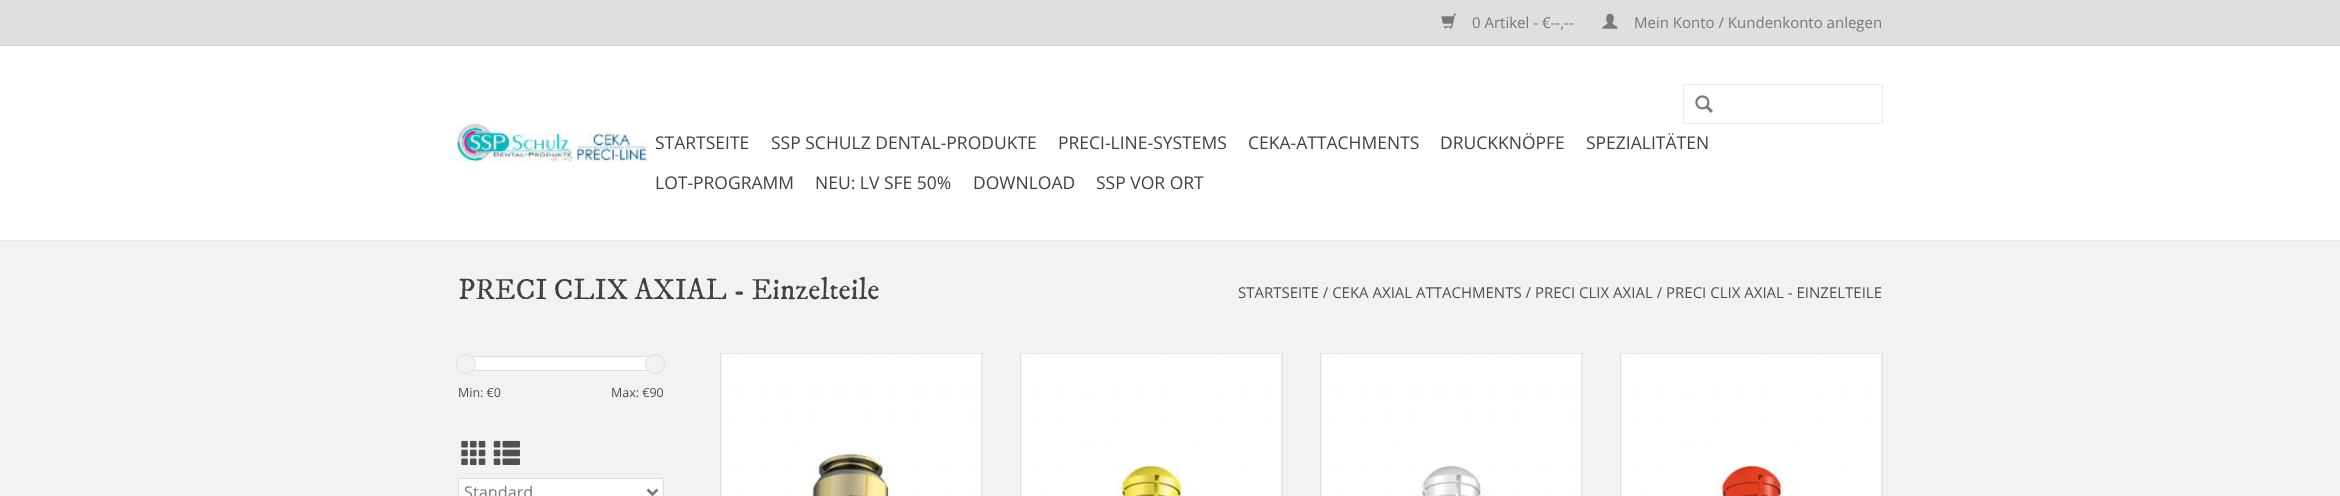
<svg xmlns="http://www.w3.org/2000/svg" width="2340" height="496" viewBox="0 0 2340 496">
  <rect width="100%" height="100%" fill="rgb(242,242,242)"/>
  <rect x="0" y="46" width="2340" height="194" fill="rgb(255,255,255)"/>
  <rect x="0" y="240" width="2340" height="1" fill="rgb(234,234,234)"/>
  <rect x="0" y="0" width="2340" height="45" fill="rgb(223,223,223)"/>
  <rect x="0" y="45" width="2340" height="1" fill="rgb(207,207,207)"/>
  <image x="1441" y="13" width="16" height="16" href="pic1.png"/>
  <text x="1472" y="28" font-family="Open Sans" font-size="15" fill="rgb(121,121,121)">0 Artikel - €--,--</text>
  <image x="1602" y="13" width="16" height="16" href="pic2.png"/>
  <text x="1634" y="28" font-family="Open Sans" font-size="15" fill="rgb(121,121,121)">Mein Konto / Kundenkonto anlegen</text>
  <image x="457" y="122" width="191" height="41" href="pic3.png"/>
  <rect x="1683.5" y="84.5" width="199" height="39" fill="none" stroke="rgb(234,234,234)"/>
  <image x="1695" y="95" width="18" height="18" href="pic4.png"/>
  <g font-family="Open Sans" font-size="17.5" fill="rgb(65,65,65)">
    <text x="655" y="149">STARTSEITE</text>
    <text x="771" y="149">SSP SCHULZ DENTAL-PRODUKTE</text>
    <text x="1058" y="149">PRECI-LINE-SYSTEMS</text>
    <text x="1248" y="149">CEKA-ATTACHMENTS</text>
    <text x="1440" y="149">DRUCKKNÖPFE</text>
    <text x="1586" y="149">SPEZIALITÄTEN</text>
    <text x="655" y="189">LOT-PROGRAMM</text>
    <text x="815" y="189">NEU: LV SFE 50%</text>
    <text x="973" y="189">DOWNLOAD</text>
    <text x="1096" y="189">SSP VOR ORT</text>
  </g>
  <text x="458" y="299" font-family="IM FELL DW Pica" font-size="29.5" fill="rgb(65,65,65)">PRECI CLIX AXIAL - Einzelteile</text>
  <text x="1238" y="298" font-family="Open Sans" font-size="15" fill="rgb(80,80,80)">STARTSEITE / CEKA AXIAL ATTACHMENTS / PRECI CLIX AXIAL / PRECI CLIX AXIAL - EINZELTEILE</text>
  <rect x="473" y="357" width="175" height="13" fill="rgb(255,255,255)"/>
  <rect x="468.5" y="356.5" width="187" height="14" fill="none" stroke="rgb(222,222,222)"/>
  <circle cx="466" cy="364" r="9.5" fill="rgb(242,242,242)" stroke="rgb(222,222,222)"/>
  <circle cx="655" cy="364" r="9.5" fill="rgb(242,242,242)" stroke="rgb(222,222,222)"/>
  <g font-family="Open Sans" font-size="12.5" fill="rgb(80,80,80)">
    <text x="458" y="397">Min: €0</text>
    <text x="611" y="397">Max: €90</text>
  </g>
  <image x="461" y="440" width="25" height="25" href="pic5.png"/>
  <image x="493" y="440" width="27" height="25" href="pic6.png"/>
  <rect x="458.5" y="478.5" width="205" height="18" fill="rgb(255,255,255)" stroke="rgb(222,222,222)"/>
  <path d="M647.5 489.5L652.5 494.5L657.5 489.5" fill="none" stroke="rgb(119,119,119)" stroke-width="2.5"/>
  <text x="464" y="498" font-family="Open Sans" font-size="16.25" fill="rgb(121,121,121)">Standard</text>
  <rect x="721" y="354" width="262" height="142" fill="rgb(234,234,234)"/>
  <rect x="720" y="353" width="263" height="1" fill="rgb(222,222,222)"/>
  <rect x="981" y="353" width="1" height="143" fill="rgb(222,222,222)"/>
  <rect x="720" y="353" width="1" height="143" fill="rgb(222,222,222)"/>
  <image x="721" y="353" width="261" height="143" href="pic7.png"/>
  <rect x="1021" y="354" width="262" height="142" fill="rgb(234,234,234)"/>
  <rect x="1020" y="353" width="263" height="1" fill="rgb(222,222,222)"/>
  <rect x="1281" y="353" width="1" height="143" fill="rgb(222,222,222)"/>
  <rect x="1020" y="353" width="1" height="143" fill="rgb(222,222,222)"/>
  <image x="1021" y="353" width="261" height="143" href="pic8.png"/>
  <rect x="1321" y="354" width="262" height="142" fill="rgb(234,234,234)"/>
  <rect x="1320" y="353" width="263" height="1" fill="rgb(222,222,222)"/>
  <rect x="1581" y="353" width="1" height="143" fill="rgb(222,222,222)"/>
  <rect x="1320" y="353" width="1" height="143" fill="rgb(222,222,222)"/>
  <image x="1321" y="353" width="261" height="143" href="pic9.png"/>
  <rect x="1621" y="354" width="262" height="142" fill="rgb(234,234,234)"/>
  <rect x="1620" y="353" width="263" height="1" fill="rgb(222,222,222)"/>
  <rect x="1881" y="353" width="1" height="143" fill="rgb(222,222,222)"/>
  <rect x="1620" y="353" width="1" height="143" fill="rgb(222,222,222)"/>
  <image x="1621" y="353" width="261" height="143" href="pic10.png"/>
</svg>
